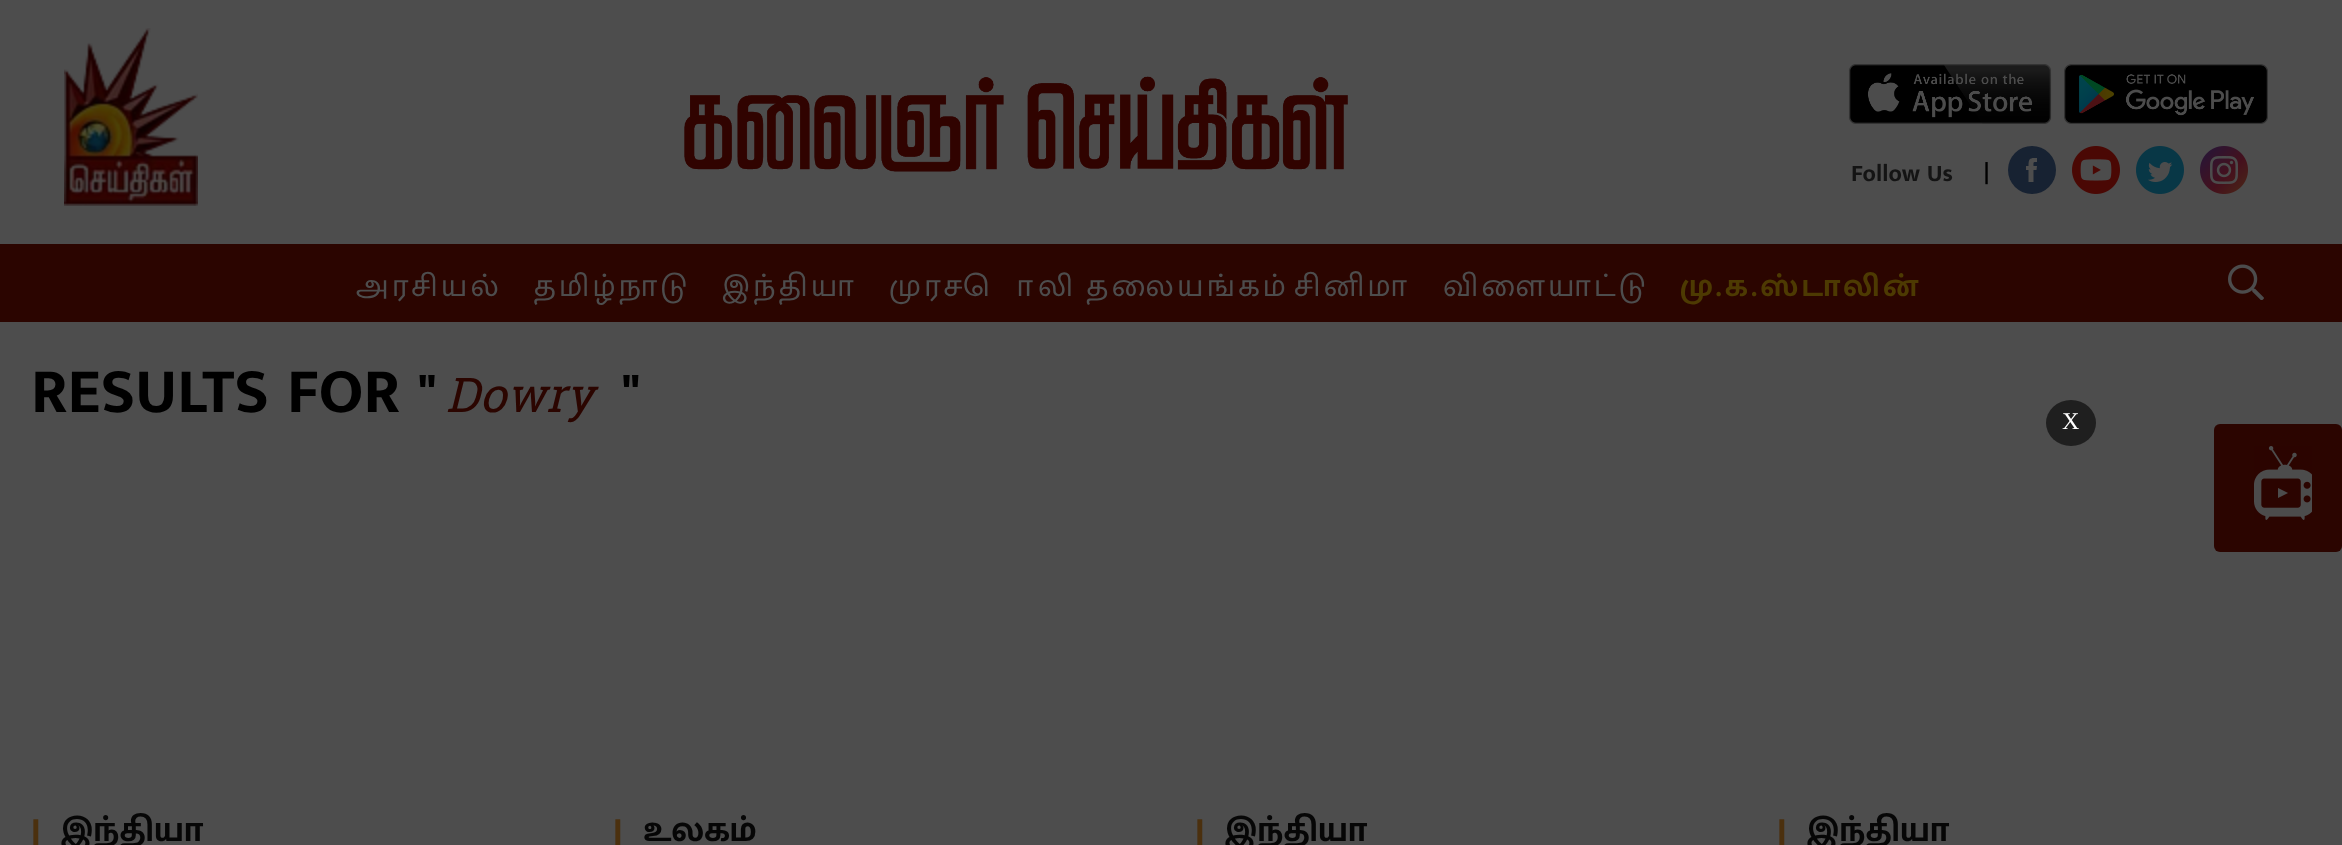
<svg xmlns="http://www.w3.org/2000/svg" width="2342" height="845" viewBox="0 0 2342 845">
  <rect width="100%" height="100%" fill="rgb(77,77,77)"/>
  <image x="64" y="28" width="134" height="178" href="pic1.png"/>
  <image x="684" y="76" width="664" height="96" href="pic2.png"/>
  <image x="1848" y="64" width="204" height="60" href="pic3.png"/>
  <image x="2064" y="64" width="204" height="60" href="pic4.png"/>
  <text x="1851" y="181" font-family="Mukta Malar" font-size="24" font-weight="bold" fill="rgb(20,20,20)">Follow Us</text>
  <text x="1983" y="181" font-family="Mukta Malar" font-size="32" fill="rgb(0,0,0)">|</text>
  <circle cx="2032" cy="170" r="24" fill="rgb(23,34,50)"/>
  <image x="2072" y="146" width="48" height="48" href="pic5.png"/>
  <image x="2136" y="146" width="48" height="48" href="pic6.png"/>
  <image x="2200" y="146" width="48" height="48" href="pic7.png"/>
  <path d="M2033.5 182V170H2036.5L2037 166H2033.5C2033.5 162 2033 162 2037 162V158C2030 158 2028.5 158 2028.5 166H2026V170H2028.5V182Z" fill="rgb(77,77,77)"/>
  <rect x="0" y="244" width="2342" height="78" fill="rgb(43,5,0)"/>
  <g font-family="Mukta Malar" font-size="32" letter-spacing="3.4" fill="rgb(77,77,77)">
    <text x="356" y="296">அரசியல்</text>
    <text x="534" y="296">தமிழ்நாடு</text>
    <text x="722" y="296">இந்தியா</text>
    <text x="889" y="296" word-spacing="-2">முரசொலி தலையங்கம்</text>
    <text x="1294" y="296">சினிமா</text>
    <text x="1443" y="296">விளையாட்டு</text>
  </g>
  <text x="1680" y="296" font-family="Mukta Malar" font-size="32" font-weight="bold" letter-spacing="3.4" fill="rgb(77,58,2)">மு.க.ஸ்டாலின்</text>
  <image x="2228" y="264" width="36" height="36" href="pic8.png"/>
  <text x="31" y="412" font-family="Mukta Malar" font-size="64" font-weight="bold" fill="rgb(0,0,0)">RESULTS FOR "</text>
  <text x="446" y="412" font-family="Roboto Slab" font-size="48" font-style="italic" fill="rgb(43,5,0)">Dowry</text>
  <text x="622" y="412" font-family="Mukta Malar" font-size="64" font-weight="bold" fill="rgb(0,0,0)">"</text>
  <text x="31" y="844" font-family="Mukta Malar" font-size="40" font-weight="bold" fill="rgb(75,48,14)">|</text>
  <text x="61" y="841" font-family="Mukta Malar" font-size="36" font-weight="bold" fill="rgb(6,6,6)">இந்தியா</text>
  <text x="613" y="844" font-family="Mukta Malar" font-size="40" font-weight="bold" fill="rgb(75,48,14)">|</text>
  <text x="643" y="841" font-family="Mukta Malar" font-size="36" font-weight="bold" fill="rgb(6,6,6)">உலகம்</text>
  <text x="1195" y="844" font-family="Mukta Malar" font-size="40" font-weight="bold" fill="rgb(75,48,14)">|</text>
  <text x="1225" y="841" font-family="Mukta Malar" font-size="36" font-weight="bold" fill="rgb(6,6,6)">இந்தியா</text>
  <text x="1777" y="844" font-family="Mukta Malar" font-size="40" font-weight="bold" fill="rgb(75,48,14)">|</text>
  <text x="1807" y="841" font-family="Mukta Malar" font-size="36" font-weight="bold" fill="rgb(6,6,6)">இந்தியா</text>
  <rect x="2214" y="424" width="128" height="128" rx="6" fill="rgb(43,5,0)"/>
  <image x="2254" y="446" width="58" height="74" href="pic9.png"/>
  <ellipse cx="2071" cy="423" rx="25" ry="23" fill="rgb(31,31,31)"/>
  <text x="2062" y="429" font-family="Liberation Serif" font-size="24" fill="rgb(255,255,255)">X</text>
</svg>
